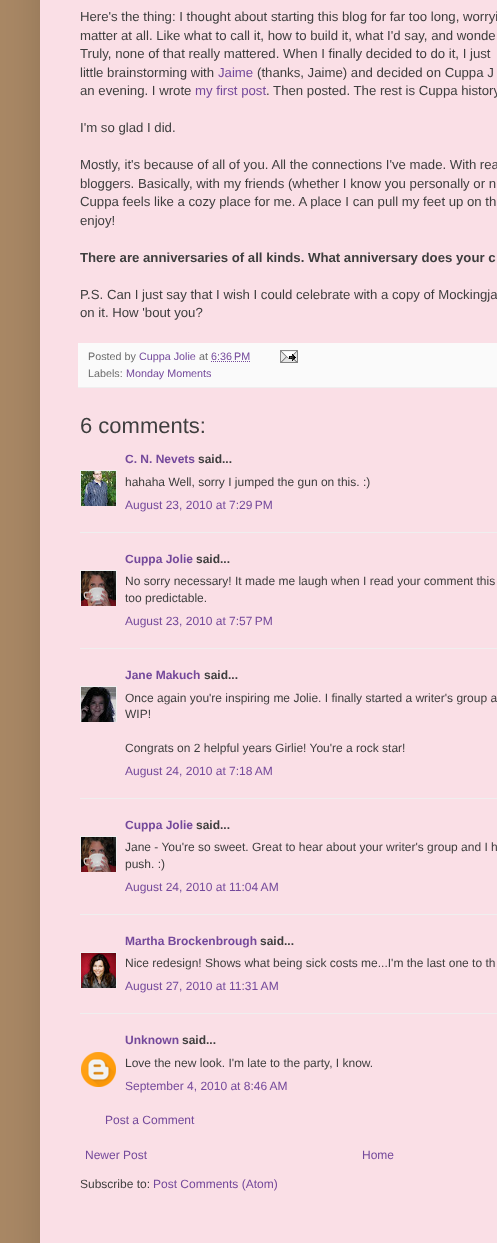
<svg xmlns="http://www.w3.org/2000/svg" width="497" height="1243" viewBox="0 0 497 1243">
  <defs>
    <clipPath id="clip1"><rect x="80" y="470" width="37" height="36"/></clipPath>
    <clipPath id="clip2"><rect x="80" y="570" width="37" height="36"/></clipPath>
    <clipPath id="clip3"><rect x="80" y="686" width="37" height="36"/></clipPath>
    <clipPath id="clip4"><rect x="80" y="836" width="37" height="36"/></clipPath>
    <clipPath id="clip5"><rect x="80" y="952" width="37" height="36"/></clipPath>
  </defs>
  <rect width="100%" height="100%" fill="rgb(169,136,101)"/>
  <rect x="40" y="-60" width="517" height="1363" fill="rgba(0,0,0,0.15)" filter="blur(20px)"/>
  <rect x="40" y="0" width="457" height="1243" fill="rgb(250,223,230)"/>
  <g font-family="Liberation Sans" font-size="13.2" fill="rgb(62,62,62)">
    <text>
      <tspan x="80" y="21">Here's the thing: I thought about starting this blog for far too long, worryi</tspan>
      <tspan x="80" y="40">matter at all. Like what to call it, how to build it, what I'd say, and wonde</tspan>
      <tspan x="80" y="58">Truly, none of that really mattered. When I finally decided to do it, I just</tspan>
      <tspan x="80" y="77">little brainstorming with</tspan>
    </text>
  </g>
  <text x="218" y="77" font-family="Liberation Sans" font-size="13.2" fill="rgb(116,73,155)">Jaime</text>
  <g font-family="Liberation Sans" font-size="13.2" fill="rgb(62,62,62)">
    <text x="257" y="77">(thanks, Jaime) and decided on Cuppa J</text>
    <text x="80" y="95">an evening. I wrote</text>
  </g>
  <text x="195" y="95" font-family="Liberation Sans" font-size="13.2" fill="rgb(116,73,155)">my first post</text>
  <g font-family="Liberation Sans" font-size="13.2" fill="rgb(62,62,62)">
    <text x="266" y="95">. Then posted. The rest is Cuppa history</text>
    <text x="80" y="132">I'm so glad I did.</text>
    <text>
      <tspan x="80" y="169">Mostly, it's because of all of you. All the connections I've made. With rea</tspan>
      <tspan x="80" y="188">bloggers. Basically, with my friends (whether I know you personally or n</tspan>
      <tspan x="80" y="206">Cuppa feels like a cozy place for me. A place I can pull my feet up on th</tspan>
      <tspan x="80" y="225">enjoy!</tspan>
    </text>
  </g>
  <text x="80" y="262" font-family="Liberation Sans" font-size="13.2" font-weight="bold" fill="rgb(62,62,62)">There are anniversaries of all kinds. What anniversary does your c</text>
  <g font-family="Liberation Sans" font-size="13.2" fill="rgb(62,62,62)">
    <text>
      <tspan x="80" y="299">P.S. Can I just say that I wish I could celebrate with a copy of Mockingja</tspan>
      <tspan x="80" y="317">on it. How 'bout you?</tspan>
    </text>
  </g>
  <rect x="78" y="343" width="419" height="44" fill="rgb(250,250,250)"/>
  <rect x="78" y="387" width="419" height="1" fill="rgb(239,239,239)"/>
  <text x="88" y="360" font-family="Liberation Sans" font-size="10.75" fill="rgb(108,108,108)">Posted by</text>
  <text x="139" y="360" font-family="Liberation Sans" font-size="10.75" fill="rgb(116,73,155)">Cuppa Jolie</text>
  <text x="199" y="360" font-family="Liberation Sans" font-size="10.75" fill="rgb(108,108,108)">at</text>
  <text x="211" y="360" font-family="Liberation Sans" font-size="10.75" fill="rgb(116,73,155)">6:36 PM</text>
  <path d="M211 361.5H250.5" fill="none" stroke="rgb(116,73,155)" stroke-dasharray="1 1"/>
  <image x="280" y="350" width="18" height="13" href="pic1.png"/>
  <text x="88" y="377" font-family="Liberation Sans" font-size="10.75" fill="rgb(108,108,108)">Labels:</text>
  <text x="126" y="377" font-family="Liberation Sans" font-size="10.75" fill="rgb(116,73,155)">Monday Moments</text>
  <text x="80" y="433" font-family="Liberation Sans" font-size="22" fill="rgb(62,62,62)">6 comments:</text>
  <text x="125" y="463" font-family="Liberation Sans" font-size="12" font-weight="bold" fill="rgb(116,73,155)">C. N. Nevets</text>
  <text x="198" y="463" font-family="Liberation Sans" font-size="12" font-weight="bold" fill="rgb(62,62,62)">said...</text>
  <g clip-path="url(#clip1)">
    <rect x="80.5" y="470.5" width="36" height="36" fill="none" stroke="rgb(239,239,239)"/>
  </g>
  <image x="81" y="471" width="35" height="35" href="pic2.png"/>
  <text x="125" y="486" font-family="Liberation Sans" font-size="12" fill="rgb(62,62,62)">hahaha Well, sorry I jumped the gun on this. :)</text>
  <text x="125" y="509" font-family="Liberation Sans" font-size="12" fill="rgb(116,73,155)">August 23, 2010 at 7:29 PM</text>
  <rect x="80" y="532" width="417" height="1" fill="rgb(239,239,239)"/>
  <text x="125" y="563" font-family="Liberation Sans" font-size="12" font-weight="bold" fill="rgb(116,73,155)">Cuppa Jolie</text>
  <text x="196" y="563" font-family="Liberation Sans" font-size="12" font-weight="bold" fill="rgb(62,62,62)">said...</text>
  <g clip-path="url(#clip2)">
    <rect x="80.5" y="570.5" width="36" height="36" fill="none" stroke="rgb(239,239,239)"/>
  </g>
  <image x="81" y="571" width="35" height="35" href="pic3.png"/>
  <g font-family="Liberation Sans" font-size="12" fill="rgb(62,62,62)">
    <text>
      <tspan x="125" y="585">No sorry necessary! It made me laugh when I read your comment this</tspan>
      <tspan x="125" y="602">too predictable.</tspan>
    </text>
  </g>
  <text x="125" y="625" font-family="Liberation Sans" font-size="12" fill="rgb(116,73,155)">August 23, 2010 at 7:57 PM</text>
  <rect x="80" y="648" width="417" height="1" fill="rgb(239,239,239)"/>
  <text x="125" y="679" font-family="Liberation Sans" font-size="12" font-weight="bold" fill="rgb(116,73,155)">Jane Makuch</text>
  <text x="204" y="679" font-family="Liberation Sans" font-size="12" font-weight="bold" fill="rgb(62,62,62)">said...</text>
  <g clip-path="url(#clip3)">
    <rect x="80.5" y="686.5" width="36" height="36" fill="none" stroke="rgb(239,239,239)"/>
  </g>
  <image x="81" y="687" width="35" height="35" href="pic4.png"/>
  <g font-family="Liberation Sans" font-size="12" fill="rgb(62,62,62)">
    <text>
      <tspan x="125" y="702">Once again you're inspiring me Jolie. I finally started a writer's group a</tspan>
      <tspan x="125" y="718">WIP!</tspan>
    </text>
    <text x="125" y="752">Congrats on 2 helpful years Girlie! You're a rock star!</text>
  </g>
  <text x="125" y="775" font-family="Liberation Sans" font-size="12" fill="rgb(116,73,155)">August 24, 2010 at 7:18 AM</text>
  <rect x="80" y="798" width="417" height="1" fill="rgb(239,239,239)"/>
  <text x="125" y="829" font-family="Liberation Sans" font-size="12" font-weight="bold" fill="rgb(116,73,155)">Cuppa Jolie</text>
  <text x="196" y="829" font-family="Liberation Sans" font-size="12" font-weight="bold" fill="rgb(62,62,62)">said...</text>
  <g clip-path="url(#clip4)">
    <rect x="80.5" y="836.5" width="36" height="36" fill="none" stroke="rgb(239,239,239)"/>
  </g>
  <image x="81" y="837" width="35" height="35" href="pic5.png"/>
  <g font-family="Liberation Sans" font-size="12" fill="rgb(62,62,62)">
    <text>
      <tspan x="125" y="851">Jane - You're so sweet. Great to hear about your writer's group and I h</tspan>
      <tspan x="125" y="868">push. :)</tspan>
    </text>
  </g>
  <text x="125" y="891" font-family="Liberation Sans" font-size="12" fill="rgb(116,73,155)">August 24, 2010 at 11:04 AM</text>
  <rect x="80" y="914" width="417" height="1" fill="rgb(239,239,239)"/>
  <text x="125" y="945" font-family="Liberation Sans" font-size="12" font-weight="bold" fill="rgb(116,73,155)">Martha Brockenbrough</text>
  <text x="260" y="945" font-family="Liberation Sans" font-size="12" font-weight="bold" fill="rgb(62,62,62)">said...</text>
  <g clip-path="url(#clip5)">
    <rect x="80.5" y="952.5" width="36" height="36" fill="none" stroke="rgb(239,239,239)"/>
  </g>
  <image x="81" y="953" width="35" height="35" href="pic6.png"/>
  <text x="125" y="967" font-family="Liberation Sans" font-size="12" fill="rgb(62,62,62)">Nice redesign! Shows what being sick costs me...I'm the last one to th</text>
  <text x="125" y="990" font-family="Liberation Sans" font-size="12" fill="rgb(116,73,155)">August 27, 2010 at 11:31 AM</text>
  <rect x="80" y="1013" width="417" height="1" fill="rgb(239,239,239)"/>
  <text x="125" y="1044" font-family="Liberation Sans" font-size="12" font-weight="bold" fill="rgb(116,73,155)">Unknown</text>
  <text x="182" y="1044" font-family="Liberation Sans" font-size="12" font-weight="bold" fill="rgb(62,62,62)">said...</text>
  <image x="81" y="1052" width="35" height="35" href="pic7.png"/>
  <text x="125" y="1067" font-family="Liberation Sans" font-size="12" fill="rgb(62,62,62)">Love the new look. I'm late to the party, I know.</text>
  <g font-family="Liberation Sans" font-size="12" fill="rgb(116,73,155)">
    <text x="125" y="1090">September 4, 2010 at 8:46 AM</text>
    <text x="105" y="1124">Post a Comment</text>
    <text x="85" y="1159">Newer Post</text>
    <text x="362" y="1159">Home</text>
  </g>
  <text x="80" y="1188" font-family="Liberation Sans" font-size="12" fill="rgb(62,62,62)">Subscribe to:</text>
  <text x="153" y="1188" font-family="Liberation Sans" font-size="12" fill="rgb(116,73,155)">Post Comments (Atom)</text>
</svg>
